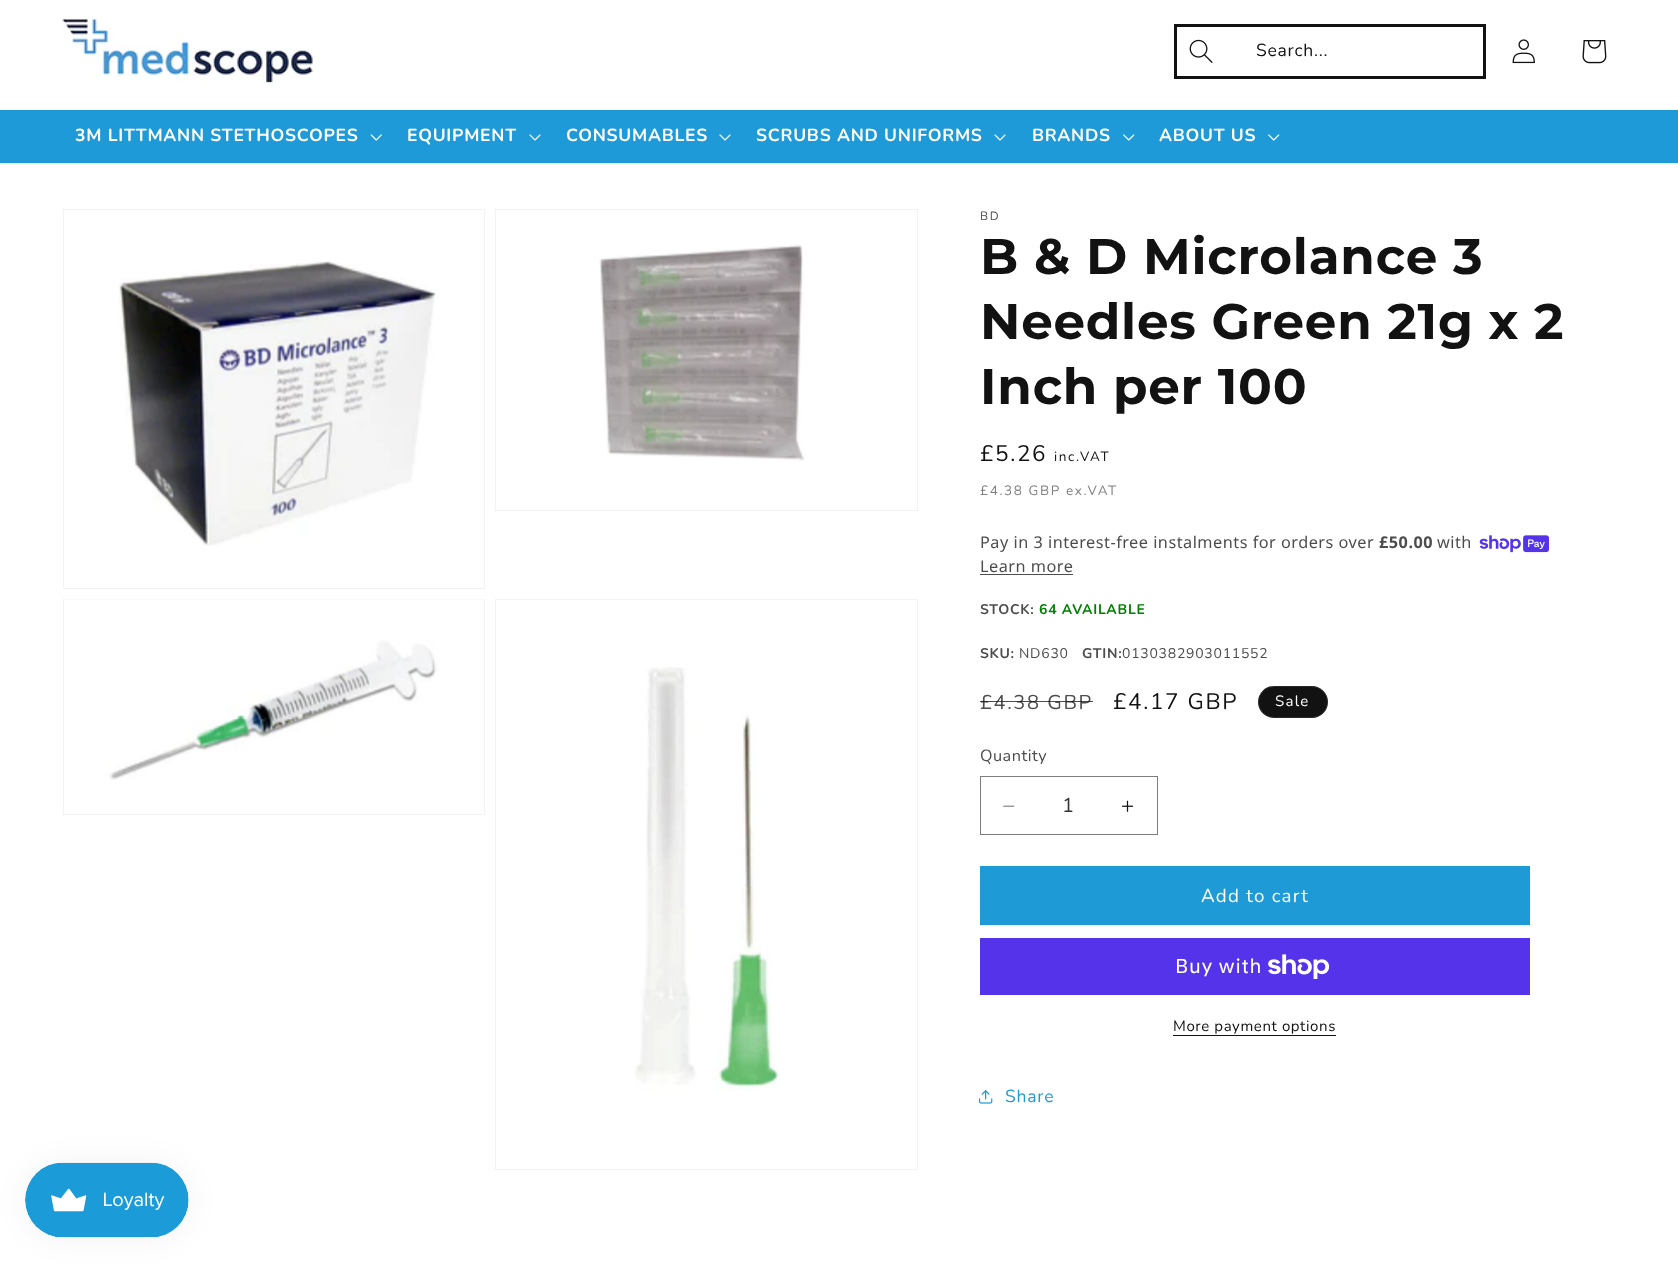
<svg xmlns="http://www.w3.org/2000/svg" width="1678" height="1275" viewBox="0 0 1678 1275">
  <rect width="100%" height="100%" fill="rgb(255,255,255)"/>
  <rect x="0" y="163" width="1678" height="1" fill="rgb(236,236,236)"/>
  <image x="62" y="17" width="251" height="69" href="pic1.png"/>
  <rect x="1175.5" y="25.5" width="309" height="52" fill="none" stroke="rgb(18,18,18)" stroke-width="3"/>
  <image x="1189" y="39" width="24" height="24" href="pic2.png"/>
  <text x="1256" y="56" font-family="Nunito" font-size="17.5" letter-spacing="0.75" fill="rgb(18,18,18)">Search...</text>
  <image x="1512" y="39" width="23" height="25" href="pic3.png"/>
  <image x="1582" y="40" width="25" height="24" href="pic4.png"/>
  <rect x="0" y="110" width="1678" height="53" fill="rgb(29,154,215)"/>
  <text x="75" y="141" font-family="Nunito" font-size="17.5" font-weight="bold" letter-spacing="0.75" fill="rgb(255,255,255)">3M LITTMANN STETHOSCOPES</text>
  <image x="370" y="134" width="12" height="7" href="pic5.png"/>
  <text x="407" y="141" font-family="Nunito" font-size="17.5" font-weight="bold" letter-spacing="0.75" fill="rgb(255,255,255)">EQUIPMENT</text>
  <image x="529" y="134" width="12" height="7" href="pic6.png"/>
  <text x="566" y="141" font-family="Nunito" font-size="17.5" font-weight="bold" letter-spacing="0.75" fill="rgb(255,255,255)">CONSUMABLES</text>
  <image x="719" y="134" width="12" height="7" href="pic6.png"/>
  <text x="756" y="141" font-family="Nunito" font-size="17.5" font-weight="bold" letter-spacing="0.75" fill="rgb(255,255,255)">SCRUBS AND UNIFORMS</text>
  <image x="994" y="134" width="12" height="7" href="pic6.png"/>
  <text x="1032" y="141" font-family="Nunito" font-size="17.5" font-weight="bold" letter-spacing="0.75" fill="rgb(255,255,255)">BRANDS</text>
  <image x="1123" y="134" width="12" height="7" href="pic7.png"/>
  <text x="1159" y="141" font-family="Nunito" font-size="17.5" font-weight="bold" letter-spacing="0.75" fill="rgb(255,255,255)">ABOUT US</text>
  <image x="1268" y="134" width="12" height="7" href="pic7.png"/>
  <rect x="63.5" y="209.5" width="421" height="379" fill="none" stroke="rgb(243,243,243)"/>
  <image x="118" y="261" width="321" height="285" href="pic8.png"/>
  <rect x="495.5" y="209.5" width="422" height="301" fill="none" stroke="rgb(243,243,243)"/>
  <image x="599" y="244" width="206" height="217" href="pic9.png"/>
  <rect x="63.5" y="599.5" width="421" height="215" fill="none" stroke="rgb(243,243,243)"/>
  <image x="64" y="599" width="420" height="181" href="pic10.png"/>
  <rect x="495.5" y="599.5" width="422" height="570" fill="none" stroke="rgb(243,243,243)"/>
  <image x="635" y="667" width="146" height="424" href="pic11.png"/>
  <text x="980" y="220" font-family="Nunito" font-size="12" letter-spacing="1.6" fill="rgb(77,77,77)">BD</text>
  <g font-family="Montserrat" font-size="50" font-weight="bold" letter-spacing="0.75" fill="rgb(18,18,18)">
    <text>
      <tspan x="980" y="274">B &amp; D Microlance 3</tspan>
      <tspan x="980" y="339">Needles Green 21g x 2</tspan>
      <tspan x="980" y="404">Inch per 100</tspan>
    </text>
  </g>
  <text x="980" y="461" font-family="Nunito" font-size="22.5" letter-spacing="1.6" fill="rgb(18,18,18)">£5.26</text>
  <text x="1054" y="461" font-family="Nunito" font-size="13.5" letter-spacing="1.6" fill="rgb(18,18,18)">inc.VAT</text>
  <text x="980" y="495" font-family="Nunito" font-size="13.5" letter-spacing="1.6" fill="rgb(128,128,128)">£4.38 GBP ex.VAT</text>
  <text x="980" y="548" font-family="Noto Sans" font-size="16.25" letter-spacing="0.5" fill="rgb(77,77,77)">Pay in 3 interest-free instalments for orders over</text>
  <text x="1379" y="548" font-family="Noto Sans" font-size="16.25" font-weight="bold" letter-spacing="0.5" fill="rgb(77,77,77)">£50.00</text>
  <text x="1437" y="548" font-family="Noto Sans" font-size="16.25" letter-spacing="0.5" fill="rgb(77,77,77)">with</text>
  <image x="1479" y="535" width="70" height="18" href="pic12.png"/>
  <text x="980" y="572" font-family="Noto Sans" font-size="16.25" letter-spacing="0.5" fill="rgb(77,77,77)">Learn more</text>
  <rect x="980" y="574" width="93" height="1" fill="rgb(77,77,77)"/>
  <text x="980" y="614" font-family="Nunito" font-size="14" font-weight="bold" letter-spacing="0.75" fill="rgb(77,77,77)">STOCK:</text>
  <text x="1039" y="614" font-family="Nunito" font-size="14" font-weight="bold" letter-spacing="0.75" fill="rgb(0,128,0)">64 AVAILABLE</text>
  <text x="980" y="658" font-family="Nunito" font-size="14" font-weight="bold" letter-spacing="0.75" fill="rgb(77,77,77)">SKU:</text>
  <text x="1019" y="658" font-family="Nunito" font-size="14" letter-spacing="0.75" fill="rgb(77,77,77)">ND630</text>
  <text x="1082" y="658" font-family="Nunito" font-size="14" font-weight="bold" letter-spacing="0.75" fill="rgb(77,77,77)">GTIN:</text>
  <text x="1122" y="658" font-family="Nunito" font-size="14" letter-spacing="0.75" fill="rgb(77,77,77)">0130382903011552</text>
  <text x="980" y="709" font-family="Nunito" font-size="20" letter-spacing="1.6" fill="rgb(77,77,77)">£4.38 GBP</text>
  <rect x="980" y="701" width="113" height="1" fill="rgba(18,18,18,0.75)"/>
  <text x="1113" y="709" font-family="Nunito" font-size="22.5" letter-spacing="1.6" fill="rgb(18,18,18)">£4.17 GBP</text>
  <rect x="1258" y="686" width="70" height="32" rx="16" fill="rgb(18,18,18)"/>
  <rect x="1258.5" y="686.5" width="69" height="31" rx="15.5" fill="none" stroke="rgba(255,255,255,0.1)"/>
  <text x="1275" y="706" font-family="Nunito" font-size="15" letter-spacing="1.25" fill="rgb(255,255,255)">Sale</text>
  <text x="980" y="761" font-family="Nunito" font-size="16.25" letter-spacing="0.5" fill="rgb(77,77,77)">Quantity</text>
  <image x="1003" y="805" width="12" height="2" href="pic13.png"/>
  <image x="1121" y="800" width="13" height="12" href="pic14.png"/>
  <rect x="980.5" y="776.5" width="177" height="58" fill="none" stroke="rgb(125,125,125)"/>
  <text x="1062" y="812" font-family="Nunito" font-size="20" fill="rgb(54,54,54)">1</text>
  <rect x="980" y="866" width="550" height="59" fill="rgb(30,154,215)"/>
  <text x="1201" y="902" font-family="Nunito" font-size="18.75" letter-spacing="1.25" fill="rgb(255,255,255)">Add to cart</text>
  <rect x="980" y="938" width="550" height="57" fill="rgb(84,51,235)"/>
  <text x="1175" y="973" font-family="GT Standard" font-size="20" letter-spacing="0.75" fill="rgb(255,255,255)">Buy with</text>
  <image x="1268" y="954" width="62" height="25" href="pic15.png"/>
  <text x="1173" y="1031" font-family="Nunito" font-size="15" letter-spacing="0.6" fill="rgb(18,18,18)">More payment options</text>
  <rect x="1173" y="1035" width="163" height="1" fill="rgb(18,18,18)"/>
  <image x="978" y="1090" width="15" height="14" href="pic16.png"/>
  <text x="1005" y="1102" font-family="Nunito" font-size="17.5" letter-spacing="0.75" fill="rgb(30,154,215)">Share</text>
  <rect x="25" y="1163" width="164" height="75" rx="37.5" fill="rgba(0,0,0,0.05)" filter="blur(15.5px)"/>
  <image x="25" y="1162" width="164" height="76" href="pic17.png"/>
</svg>
